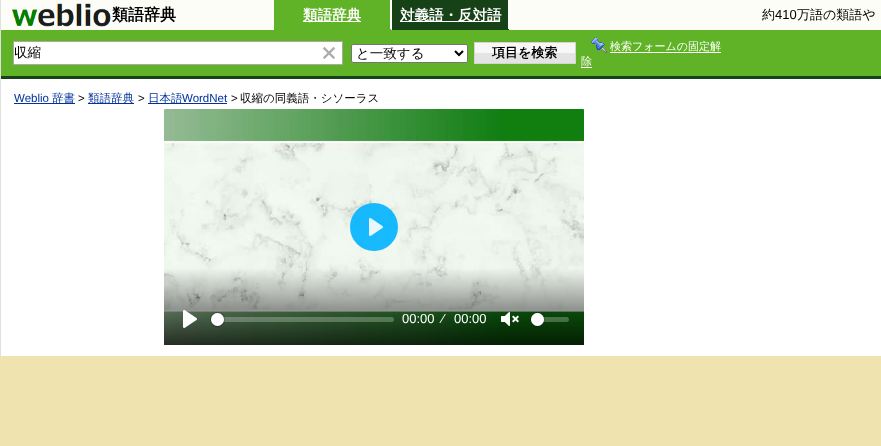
<svg xmlns="http://www.w3.org/2000/svg" width="881" height="446" viewBox="0 0 881 446">
  <rect width="100%" height="100%" fill="rgb(255,255,255)"/>
  <rect x="0" y="0" width="1" height="356" fill="rgb(224,224,224)"/>
  <rect x="1" y="0" width="880" height="30" fill="rgb(253,253,247)"/>
  <image x="11" y="3" width="100" height="24" href="pic1.png"/>
  <text x="112" y="20" font-family="WenQuanYi Zen Hei" font-size="16" font-weight="bold" fill="rgb(0,0,0)">類語辞典</text>
  <rect x="274" y="0" width="116" height="29" fill="rgb(96,179,38)"/>
  <rect x="390" y="0" width="1" height="30" fill="rgb(255,255,255)"/>
  <rect x="273" y="29" width="118" height="1" fill="rgb(96,179,38)"/>
  <rect x="273" y="0" width="1" height="30" fill="rgb(255,255,255)"/>
  <rect x="303" y="21" width="58" height="1" fill="rgb(255,255,255)"/>
  <text x="303" y="20" font-family="WenQuanYi Zen Hei" font-size="14.5" font-weight="bold" fill="rgb(255,255,255)">類語辞典</text>
  <rect x="392" y="0" width="116" height="29" fill="rgb(23,66,23)"/>
  <rect x="508" y="0" width="1" height="30" fill="rgb(255,255,255)"/>
  <rect x="391" y="29" width="118" height="1" fill="rgb(23,66,23)"/>
  <rect x="391" y="0" width="1" height="30" fill="rgb(255,255,255)"/>
  <rect x="400" y="21" width="100" height="1" fill="rgb(255,255,255)"/>
  <text x="400" y="20" font-family="WenQuanYi Zen Hei" font-size="14.5" font-weight="bold" fill="rgb(255,255,255)">対義語・反対語</text>
  <text x="762" y="19" font-family="WenQuanYi Zen Hei" font-size="13" font-weight="500" fill="rgb(0,0,0)">約</text>
  <text x="775" y="19" font-family="Liberation Sans" font-size="13" fill="rgb(0,0,0)">410</text>
  <text x="797" y="19" font-family="WenQuanYi Zen Hei" font-size="13" font-weight="500" fill="rgb(0,0,0)">万語の類語や</text>
  <rect x="1" y="30" width="880" height="46" fill="rgb(96,179,38)"/>
  <rect x="1" y="76" width="880" height="3" fill="rgb(23,66,23)"/>
  <rect x="14" y="42" width="328" height="22" fill="rgb(255,255,255)"/>
  <rect x="13" y="41" width="330" height="1" fill="rgb(169,169,169)"/>
  <rect x="342" y="41" width="1" height="24" fill="rgb(169,169,169)"/>
  <rect x="13" y="64" width="330" height="1" fill="rgb(169,169,169)"/>
  <rect x="13" y="41" width="1" height="24" fill="rgb(169,169,169)"/>
  <text x="14" y="57" font-family="WenQuanYi Zen Hei" font-size="13.5" font-weight="500" fill="rgb(0,0,0)">収縮</text>
  <image x="323" y="47" width="12" height="12" href="pic2.png"/>
  <rect x="351.5" y="44.5" width="116" height="18" rx="1.5" fill="rgb(255,255,255)" stroke="rgb(118,118,118)"/>
  <path d="M455 51L459 55L463 51" fill="none" stroke="rgb(0,0,0)" stroke-width="2"/>
  <text x="356" y="58" font-family="WenQuanYi Zen Hei" font-size="13.5" font-weight="500" fill="rgb(0,0,0)">と一致する</text>
  <rect x="474.5" y="42.5" width="101" height="21" fill="none" stroke="rgb(212,212,212)"/>
  <rect x="475" y="43" width="100" height="10" fill="rgb(247,247,247)"/>
  <rect x="475" y="53" width="100" height="10" fill="rgb(228,228,228)"/>
  <text x="492" y="57" font-family="WenQuanYi Zen Hei" font-size="13" font-weight="bold" fill="rgb(0,0,0)">項目を検索</text>
  <image x="591" y="37" width="16" height="16" href="pic3.png"/>
  <text x="610" y="50" font-family="WenQuanYi Zen Hei" font-size="11" font-weight="500" fill="rgb(255,255,255)">検索フォームの固定解</text>
  <rect x="610" y="52" width="111" height="1" fill="rgb(255,255,255)"/>
  <text x="581" y="65" font-family="WenQuanYi Zen Hei" font-size="11" font-weight="500" fill="rgb(255,255,255)">除</text>
  <rect x="581" y="67" width="11" height="1" fill="rgb(255,255,255)"/>
  <text x="14" y="102" font-family="Liberation Sans" font-size="11.5" fill="rgb(0,50,155)">Weblio</text>
  <rect x="14" y="103" width="61" height="1" fill="rgb(0,50,155)"/>
  <text x="52" y="102" font-family="WenQuanYi Zen Hei" font-size="11.5" font-weight="500" fill="rgb(0,50,155)">辞書</text>
  <text x="78" y="102" font-family="Liberation Sans" font-size="11.5" fill="rgb(0,0,0)">&gt;</text>
  <rect x="88" y="103" width="46" height="1" fill="rgb(0,50,155)"/>
  <text x="88" y="102" font-family="WenQuanYi Zen Hei" font-size="11.5" font-weight="500" fill="rgb(0,50,155)">類語辞典</text>
  <text x="138" y="102" font-family="Liberation Sans" font-size="11.5" fill="rgb(0,0,0)">&gt;</text>
  <rect x="148" y="103" width="79" height="1" fill="rgb(0,50,155)"/>
  <text x="148" y="102" font-family="WenQuanYi Zen Hei" font-size="11.5" font-weight="500" fill="rgb(0,50,155)">日本語</text>
  <text x="182" y="102" font-family="Liberation Sans" font-size="11.5" fill="rgb(0,50,155)">WordNet</text>
  <text x="231" y="102" font-family="Liberation Sans" font-size="11.5" fill="rgb(0,0,0)">&gt;</text>
  <text x="240" y="102" font-family="WenQuanYi Zen Hei" font-size="11.5" font-weight="500" fill="rgb(0,0,0)">収縮の同義語・シソーラス</text>
  <image x="164" y="109" width="420" height="236" href="pic4.png"/>
  <circle cx="374" cy="227" r="24" fill="rgba(0,178,255,0.9)"/>
  <image x="369" y="218" width="14" height="18" href="pic5.png"/>
  <image x="183" y="310" width="14" height="18" href="pic6.png"/>
  <rect x="211" y="317" width="183" height="5" rx="2.5" fill="rgba(255,255,255,0.25)"/>
  <circle cx="217.5" cy="319.5" r="7" fill="none" stroke="rgba(35,40,47,0.2)"/>
  <rect x="211" y="314" width="13" height="13" rx="6.5" fill="rgba(35,40,47,0.15)" filter="blur(0.5px)"/>
  <circle cx="217.5" cy="319.5" r="6.5" fill="rgb(255,255,255)"/>
  <g font-family="Liberation Sans" font-size="13" fill="rgb(255,255,255)">
    <text x="402" y="323">00:00</text>
    <text x="442" y="323">⁄</text>
    <text x="454" y="323">00:00</text>
  </g>
  <image x="501" y="312" width="18" height="14" href="pic7.png"/>
  <rect x="531" y="317" width="38" height="5" rx="2.5" fill="rgba(255,255,255,0.25)"/>
  <circle cx="537.5" cy="319.5" r="7" fill="none" stroke="rgba(35,40,47,0.2)"/>
  <rect x="531" y="314" width="13" height="13" rx="6.5" fill="rgba(35,40,47,0.15)" filter="blur(0.5px)"/>
  <circle cx="537.5" cy="319.5" r="6.5" fill="rgb(255,255,255)"/>
  <rect x="0" y="356" width="881" height="90" fill="rgb(239,228,176)"/>
</svg>
